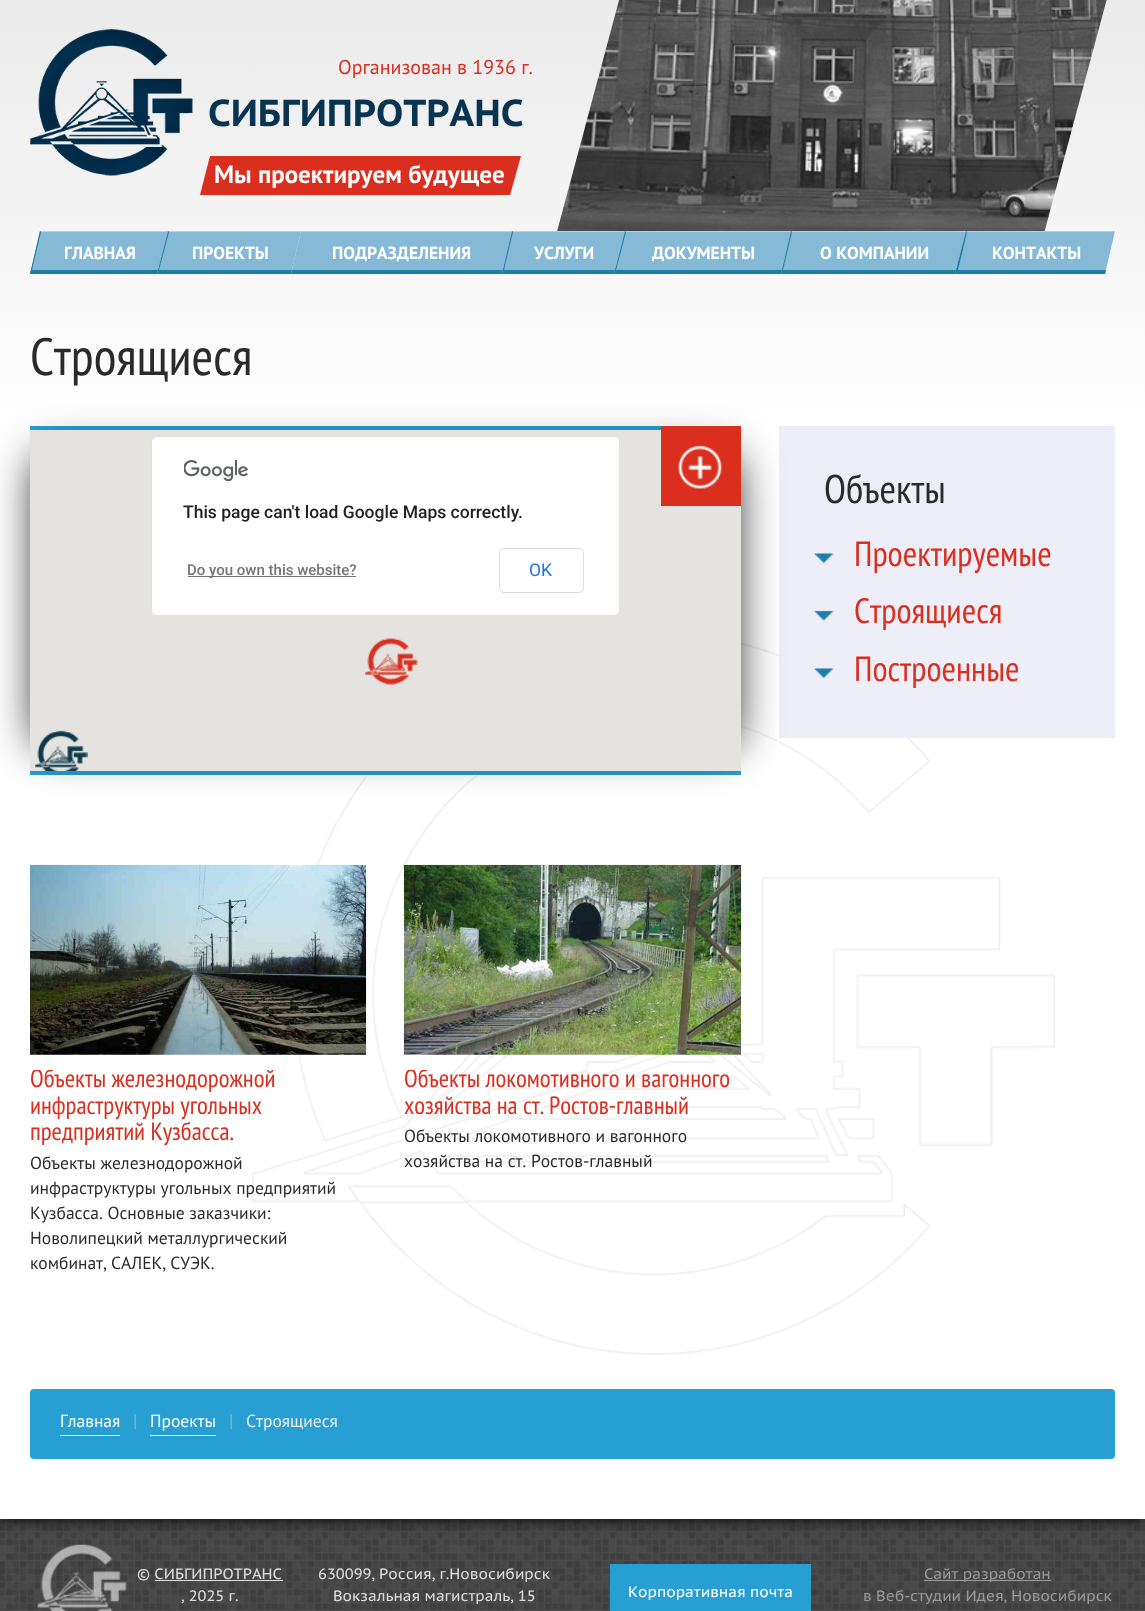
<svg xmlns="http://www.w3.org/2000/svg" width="1145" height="1611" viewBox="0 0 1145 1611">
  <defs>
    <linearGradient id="g1" gradientUnits="userSpaceOnUse" x1="573" y1="-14" x2="573" y2="436"><stop offset="0" stop-color="rgb(234,234,234)"/><stop offset="1" stop-color="rgb(255,255,255)"/></linearGradient>
    <clipPath id="clip1"><rect x="30" y="1070" width="336" height="214"/></clipPath>
    <clipPath id="clip2"><rect x="404" y="1070" width="337" height="113"/></clipPath>
  </defs>
  <rect width="100%" height="100%" fill="rgb(255,255,255)"/>
  <image x="0" y="1519" width="1145" height="92" href="pic1.png"/>
  <rect x="0" y="-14" width="1145" height="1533" fill="rgb(0,0,0)" filter="blur(7.5px)"/>
  <rect x="0" y="436" width="1145" height="1083" fill="rgb(255,255,255)"/>
  <rect x="0" y="0" width="1145" height="436" fill="url(#g1)"/>
  <image x="30" y="28" width="163" height="148" href="pic2.png"/>
  <text x="338" y="74" font-family="PT Sans" font-size="20" fill="rgb(218,46,31)">Организован в 1936 г.</text>
  <text x="208" y="126" font-family="PT Sans Caption" font-size="37.5" font-weight="bold" fill="rgb(8,52,82)">СИБГИПРОТРАНС</text>
  <path d="M210 156H521L510 195H200Z" fill="rgb(218,46,31)"/>
  <text x="214" y="183" font-family="PT Sans" font-size="25" font-weight="bold" fill="rgb(255,255,255)">Мы проектируем будущее</text>
  <image x="557" y="0" width="550" height="231" href="pic3.png"/>
  <path d="M40 231H168L157 274H30Z" fill="rgb(133,185,214)"/>
  <path d="M40 231H168L167 232H41Z" fill="rgb(176,210,228)"/>
  <path d="M31 270H158L157 274H30Z" fill="rgb(31,126,167)"/>
  <path d="M30 274L40 231L41 232L32 270Z" fill="rgb(31,126,167)"/>
  <text x="64" y="259" font-family="PT Sans" font-size="17.5" font-weight="bold" fill="rgb(255,255,255)">ГЛАВНАЯ</text>
  <path d="M168 231H301L291 274H157Z" fill="rgb(133,185,214)"/>
  <path d="M168 231H301V232H169Z" fill="rgba(255,255,255,0.35)"/>
  <path d="M158 270H292L291 274H157Z" fill="rgb(31,126,167)"/>
  <path d="M157 274L168 231L169 232L159 270Z" fill="rgb(31,126,167)"/>
  <text x="192" y="259" font-family="PT Sans" font-size="17.5" font-weight="bold" fill="rgb(255,255,255)">ПРОЕКТЫ</text>
  <path d="M301 231H512L502 274H291Z" fill="rgb(133,185,214)"/>
  <rect x="301" y="231" width="211" height="1" fill="rgba(255,255,255,0.35)"/>
  <path d="M292 270H503L502 274H291Z" fill="rgb(31,126,167)"/>
  <text x="332" y="259" font-family="PT Sans" font-size="17.5" font-weight="bold" fill="rgb(255,255,255)">ПОДРАЗДЕЛЕНИЯ</text>
  <path d="M512 231H625L614 274H502Z" fill="rgb(133,185,214)"/>
  <path d="M512 231H625L624 232H513Z" fill="rgb(176,210,228)"/>
  <path d="M503 270H615L614 274H502Z" fill="rgb(31,126,167)"/>
  <path d="M502 274L512 231L513 232L504 270Z" fill="rgb(31,126,167)"/>
  <text x="534" y="259" font-family="PT Sans" font-size="17.5" font-weight="bold" fill="rgb(255,255,255)">УСЛУГИ</text>
  <path d="M625 231H791L781 274H614Z" fill="rgb(133,185,214)"/>
  <path d="M625 231H791V232H626Z" fill="rgba(255,255,255,0.35)"/>
  <path d="M615 270H782L781 274H614Z" fill="rgb(31,126,167)"/>
  <path d="M614 274L625 231L626 232L616 270Z" fill="rgb(31,126,167)"/>
  <text x="652" y="259" font-family="PT Sans" font-size="17.5" font-weight="bold" fill="rgb(255,255,255)">ДОКУМЕНТЫ</text>
  <path d="M791 231H966L955 274H781Z" fill="rgb(133,185,214)"/>
  <path d="M791 231H966V232H792Z" fill="rgba(255,255,255,0.35)"/>
  <path d="M782 270H956L955 274H781Z" fill="rgb(31,126,167)"/>
  <path d="M781 274L791 231L792 232L783 270Z" fill="rgb(31,126,167)"/>
  <text x="820" y="259" font-family="PT Sans" font-size="17.5" font-weight="bold" fill="rgb(255,255,255)">О КОМПАНИИ</text>
  <path d="M966 231H1115L1105 274H955Z" fill="rgb(133,185,214)"/>
  <path d="M966 231H1115V232H967Z" fill="rgba(255,255,255,0.35)"/>
  <path d="M956 270H1106L1105 274H955Z" fill="rgb(31,126,167)"/>
  <path d="M955 274L966 231L967 232L958 270Z" fill="rgb(31,126,167)"/>
  <text x="992" y="259" font-family="PT Sans" font-size="17.5" font-weight="bold" fill="rgb(255,255,255)">КОНТАКТЫ</text>
  <image x="252" y="643" width="803" height="712" href="pic4.png"/>
  <text x="30" y="375" font-family="PT Sans Narrow" font-size="52.5" fill="rgb(42,42,42)">Строящиеся</text>
  <rect x="779" y="426" width="336" height="312" fill="rgb(238,238,248)"/>
  <text x="824" y="503" font-family="PT Sans Narrow" font-size="40" fill="rgb(42,42,42)">Объекты</text>
  <image x="813" y="553" width="21" height="11" href="pic5.png"/>
  <text x="854" y="566" font-family="PT Sans Narrow" font-size="35" fill="rgb(218,46,31)">Проектируемые</text>
  <image x="813" y="610" width="21" height="11" href="pic6.png"/>
  <text x="854" y="623" font-family="PT Sans Narrow" font-size="35" fill="rgb(218,46,31)">Строящиеся</text>
  <image x="813" y="668" width="21" height="11" href="pic5.png"/>
  <text x="854" y="681" font-family="PT Sans Narrow" font-size="35" fill="rgb(218,46,31)">Построенные</text>
  <rect x="30" y="426" width="631" height="4" fill="rgb(39,159,210)"/>
  <rect x="30" y="771" width="711" height="4" fill="rgb(39,159,210)"/>
  <rect x="38" y="458" width="696" height="286" fill="rgb(0,0,0)" filter="blur(22.5px)"/>
  <rect x="30" y="430" width="711" height="341" fill="rgb(229,227,223)"/>
  <rect x="661" y="426" width="80" height="80" fill="rgb(218,46,31)"/>
  <image x="678" y="445" width="44" height="44" href="pic7.png"/>
  <image x="365" y="638" width="53" height="47" href="pic8.png"/>
  <image x="35" y="730" width="53" height="41" href="pic9.png"/>
  <rect x="151" y="436" width="469" height="180" rx="6" fill="rgb(255,255,255)"/>
  <rect x="151.5" y="436.5" width="468" height="179" rx="5.5" fill="none" stroke="rgba(0,0,0,0.12)"/>
  <image x="184" y="460" width="64" height="21" href="pic10.png"/>
  <text x="183" y="518" font-family="Roboto" font-size="17.5" font-weight="500" fill="rgb(33,33,33)">This page can't load Google Maps correctly.</text>
  <rect x="188" y="576" width="168" height="1" fill="rgb(117,117,117)"/>
  <text x="187" y="575" font-family="Roboto" font-size="15" font-weight="500" fill="rgb(117,117,117)">Do you own this website?</text>
  <rect x="499.5" y="548.5" width="84" height="44" rx="4.5" fill="none" stroke="rgb(218,220,224)"/>
  <text x="529" y="576" font-family="Roboto" font-size="17.5" fill="rgb(26,115,232)">OK</text>
  <image x="30" y="864" width="337" height="191" href="pic11.png"/>
  <g clip-path="url(#clip1)">
    <text x="30" y="1087" font-family="PT Sans Narrow" font-size="25" fill="rgb(218,46,31)">Объекты железнодорожной</text>
  </g>
  <g font-family="PT Sans Narrow" font-size="25" fill="rgb(218,46,31)">
    <text>
      <tspan x="30" y="1114">инфраструктуры угольных</tspan>
      <tspan x="30" y="1140">предприятий Кузбасса.</tspan>
    </text>
  </g>
  <g font-family="PT Sans" font-size="17.5" fill="rgb(42,42,42)">
    <text>
      <tspan x="30" y="1169">Объекты железнодорожной</tspan>
      <tspan x="30" y="1194">инфраструктуры угольных предприятий</tspan>
      <tspan x="30" y="1219">Кузбасса. Основные заказчики:</tspan>
      <tspan x="30" y="1244">Новолипецкий металлургический</tspan>
      <tspan x="30" y="1269">комбинат, САЛЕК, СУЭК.</tspan>
    </text>
  </g>
  <image x="403" y="864" width="339" height="191" href="pic12.png"/>
  <g clip-path="url(#clip2)">
    <text x="404" y="1087" font-family="PT Sans Narrow" font-size="25" fill="rgb(218,46,31)">Объекты локомотивного и вагонного</text>
  </g>
  <text x="404" y="1114" font-family="PT Sans Narrow" font-size="25" fill="rgb(218,46,31)">хозяйства на ст. Ростов-главный</text>
  <g font-family="PT Sans" font-size="17.5" fill="rgb(42,42,42)">
    <text>
      <tspan x="404" y="1142">Объекты локомотивного и вагонного</tspan>
      <tspan x="404" y="1167">хозяйства на ст. Ростов-главный</tspan>
    </text>
  </g>
  <rect x="30" y="1389" width="1085" height="70" rx="4" fill="rgb(39,159,210)"/>
  <rect x="60" y="1435" width="60" height="1" fill="rgb(255,255,255)"/>
  <text x="60" y="1427" font-family="PT Sans" font-size="17.5" fill="rgb(255,255,255)">Главная</text>
  <text x="133" y="1427" font-family="PT Sans" font-size="18" fill="rgb(133,185,214)">|</text>
  <rect x="150" y="1435" width="66" height="1" fill="rgb(255,255,255)"/>
  <text x="150" y="1427" font-family="PT Sans" font-size="17.5" fill="rgb(255,255,255)">Проекты</text>
  <text x="229" y="1427" font-family="PT Sans" font-size="18" fill="rgb(133,185,214)">|</text>
  <text x="246" y="1427" font-family="PT Sans" font-size="17.5" fill="rgb(238,238,238)">Строящиеся</text>
  <image x="37" y="1544" width="90" height="67" href="pic13.png"/>
  <text x="137" y="1579" font-family="PT Sans Caption" font-size="15" fill="rgb(221,221,221)">© СИБГИПРОТРАНС</text>
  <rect x="155" y="1580" width="128" height="1" fill="rgb(221,221,221)"/>
  <g font-family="PT Sans Caption" font-size="15" fill="rgb(221,221,221)">
    <text x="181" y="1601">, 2025 г.</text>
    <text x="318" y="1579">630099, Россия, г.Новосибирск</text>
    <text x="333" y="1601">Вокзальная магистраль, 15</text>
  </g>
  <rect x="610" y="1564" width="201" height="47" fill="rgb(39,159,210)"/>
  <text x="628" y="1597" font-family="PT Sans Caption" font-size="15" fill="rgb(255,255,255)">Корпоративная почта</text>
  <rect x="924" y="1580" width="127" height="1" fill="rgb(153,153,153)"/>
  <g font-family="PT Sans Caption" font-size="15" fill="rgb(153,153,153)">
    <text x="924" y="1579">Сайт разработан</text>
    <text x="863" y="1601">в Веб-студии Идея, Новосибирск</text>
  </g>
</svg>
